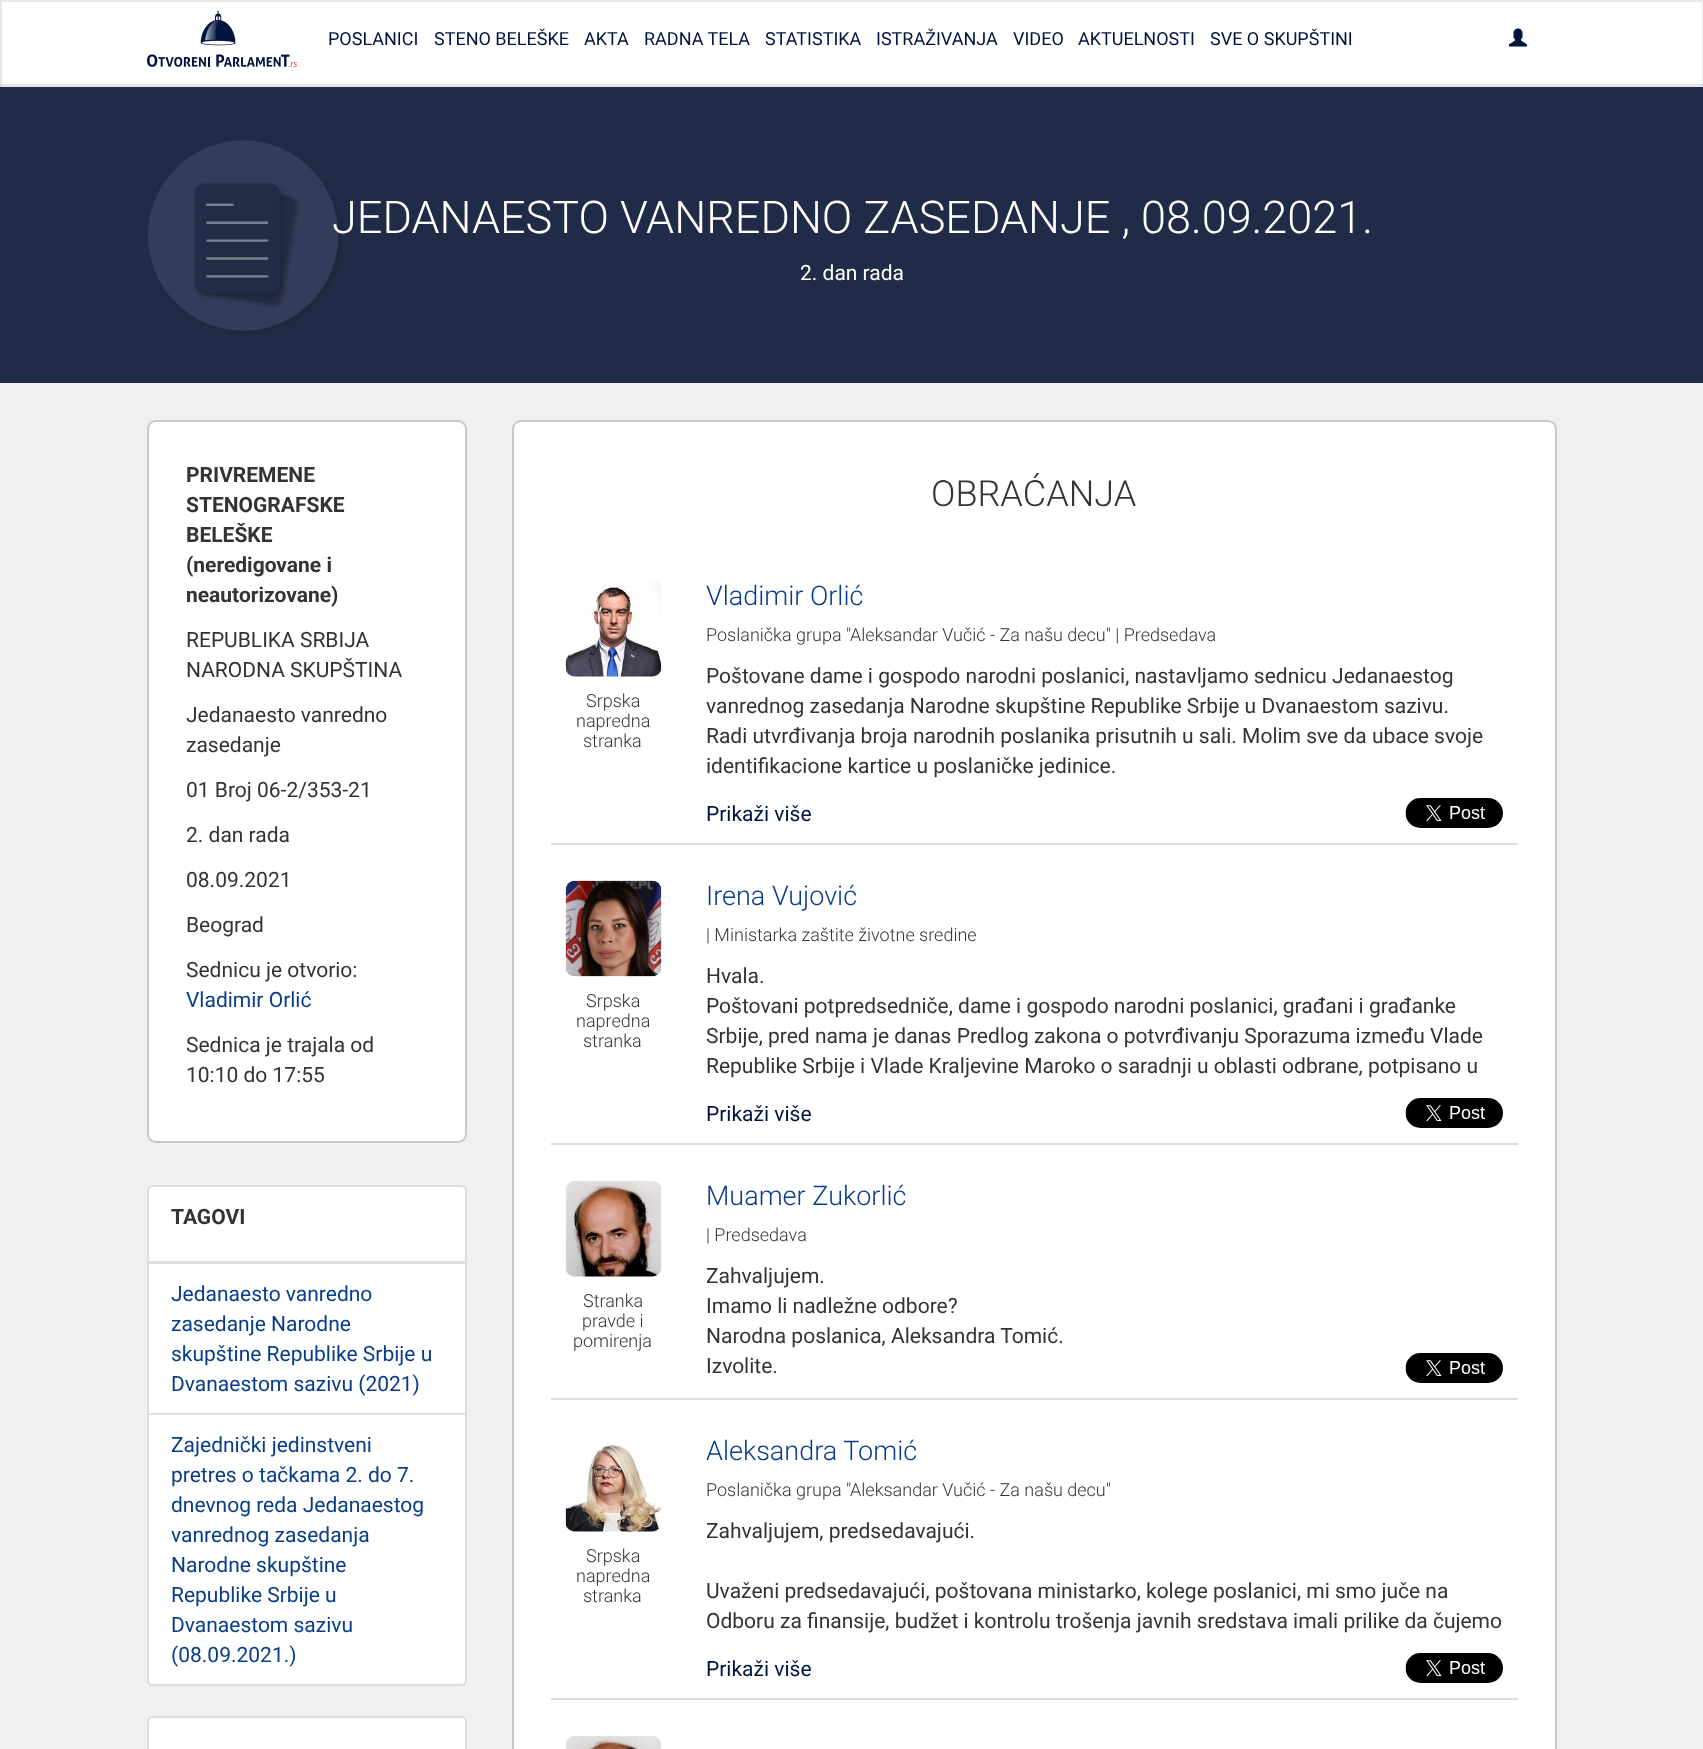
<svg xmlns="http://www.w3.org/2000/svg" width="1703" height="1749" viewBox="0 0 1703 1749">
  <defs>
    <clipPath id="clip1"><rect x="707" y="1260" width="796" height="120"/></clipPath>
    <clipPath id="clip2"><rect x="707" y="1515" width="796" height="123"/></clipPath>
  </defs>
  <rect width="100%" height="100%" fill="rgb(240,240,240)"/>
  <rect x="2" y="2" width="1700" height="82" fill="rgb(255,255,255)"/>
  <rect x="0" y="0" width="1703" height="2" fill="rgb(231,231,231)"/>
  <rect x="0" y="84" width="1703" height="299" fill="rgb(32,44,71)"/>
  <path d="M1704 0V87L1702 84V2Z" fill="rgb(231,231,231)"/>
  <path d="M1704 87H0L2 84H1702Z" fill="rgb(230,230,230)"/>
  <path d="M0 87V0L2 2V84Z" fill="rgb(231,231,231)"/>
  <image x="147" y="11" width="150" height="56" href="pic1.png"/>
  <g font-family="Roboto" font-size="18" fill="rgb(0,20,63)">
    <text x="328" y="45">POSLANICI</text>
    <text x="434" y="45">STENO BELEŠKE</text>
    <text x="584" y="45">AKTA</text>
    <text x="644" y="45">RADNA TELA</text>
    <text x="765" y="45">STATISTIKA</text>
    <text x="876" y="45">ISTRAŽIVANJA</text>
    <text x="1013" y="45">VIDEO</text>
    <text x="1078" y="45">AKTUELNOSTI</text>
    <text x="1210" y="45">SVE O SKUPŠTINI</text>
  </g>
  <image x="1509" y="28" width="18" height="19" href="pic2.png"/>
  <image x="148" y="140" width="195" height="195" href="pic3.png"/>
  <text x="332" y="233" font-family="Roboto" font-size="45" font-weight="300" fill="rgb(255,255,255)">JEDANAESTO VANREDNO ZASEDANJE , 08.09.2021.</text>
  <text x="800" y="280" font-family="Roboto" font-size="21" fill="rgb(255,255,255)">2. dan rada</text>
  <rect x="148" y="421" width="318" height="721" rx="8" fill="rgb(255,255,255)" stroke="rgb(200,200,200)" stroke-width="2"/>
  <g font-family="Roboto" font-size="21" font-weight="bold" fill="rgb(51,51,51)">
    <text>
      <tspan x="186" y="482">PRIVREMENE</tspan>
      <tspan x="186" y="512">STENOGRAFSKE</tspan>
      <tspan x="186" y="542">BELEŠKE</tspan>
      <tspan x="186" y="572">(neredigovane i</tspan>
      <tspan x="186" y="602">neautorizovane)</tspan>
    </text>
  </g>
  <g font-family="Roboto" font-size="21" fill="rgb(51,51,51)">
    <text>
      <tspan x="186" y="647">REPUBLIKA SRBIJA</tspan>
      <tspan x="186" y="677">NARODNA SKUPŠTINA</tspan>
    </text>
    <text>
      <tspan x="186" y="722">Jedanaesto vanredno</tspan>
      <tspan x="186" y="752">zasedanje</tspan>
    </text>
    <text x="186" y="797">01 Broj 06-2/353-21</text>
    <text x="186" y="842">2. dan rada</text>
    <text x="186" y="887">08.09.2021</text>
    <text x="186" y="932">Beograd</text>
    <text x="186" y="977">Sednicu je otvorio:</text>
  </g>
  <text x="186" y="1007" font-family="Roboto" font-size="21" fill="rgb(8,61,137)">Vladimir Orlić</text>
  <g font-family="Roboto" font-size="21" fill="rgb(51,51,51)">
    <text>
      <tspan x="186" y="1052">Sednica je trajala od</tspan>
      <tspan x="186" y="1082">10:10 do 17:55</tspan>
    </text>
  </g>
  <path d="M153 1186H461C464 1186 466 1188 466 1191V1262H148V1191C148 1188 150 1186 153 1186Z" fill="rgb(255,255,255)" stroke="rgb(221,221,221)" stroke-width="2"/>
  <text x="171" y="1224" font-family="Roboto" font-size="21" font-weight="bold" fill="rgb(51,51,51)">TAGOVI</text>
  <rect x="148" y="1263" width="318" height="151" fill="rgb(255,255,255)" stroke="rgb(221,221,221)" stroke-width="2"/>
  <g font-family="Roboto" font-size="21" fill="rgb(8,61,137)">
    <text>
      <tspan x="171" y="1301">Jedanaesto vanredno</tspan>
      <tspan x="171" y="1331">zasedanje Narodne</tspan>
      <tspan x="171" y="1361">skupštine Republike Srbije u</tspan>
      <tspan x="171" y="1391">Dvanaestom sazivu (2021)</tspan>
    </text>
  </g>
  <path d="M148 1414H466V1680C466 1683 464 1685 461 1685H153C150 1685 148 1683 148 1680Z" fill="rgb(255,255,255)" stroke="rgb(221,221,221)" stroke-width="2"/>
  <g font-family="Roboto" font-size="21" fill="rgb(8,61,137)">
    <text>
      <tspan x="171" y="1452">Zajednički jedinstveni</tspan>
      <tspan x="171" y="1482">pretres o tačkama 2. do 7.</tspan>
      <tspan x="171" y="1512">dnevnog reda Jedanaestog</tspan>
      <tspan x="171" y="1542">vanrednog zasedanja</tspan>
      <tspan x="171" y="1572">Narodne skupštine</tspan>
      <tspan x="171" y="1602">Republike Srbije u</tspan>
      <tspan x="171" y="1632">Dvanaestom sazivu</tspan>
      <tspan x="171" y="1662">(08.09.2021.)</tspan>
    </text>
  </g>
  <path d="M153 1717H461C464 1717 466 1719 466 1722V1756H148V1722C148 1719 150 1717 153 1717Z" fill="rgb(255,255,255)" stroke="rgb(221,221,221)" stroke-width="2"/>
  <rect x="513" y="421" width="1043" height="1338" rx="8" fill="rgb(255,255,255)" stroke="rgb(200,200,200)" stroke-width="2"/>
  <text x="931" y="506" font-family="Roboto" font-size="36" font-weight="300" fill="rgb(51,51,51)">OBRAĆANJA</text>
  <rect x="551" y="843" width="967" height="2" fill="rgb(221,221,221)"/>
  <image x="565" y="581" width="97" height="96" href="pic4.png"/>
  <g font-family="Roboto" font-size="18" font-weight="300" fill="rgb(51,51,51)">
    <text x="586" y="707">Srpska</text>
    <text x="576" y="727">napredna</text>
    <text x="583" y="747">stranka</text>
  </g>
  <text x="706" y="605" font-family="Roboto" font-size="27" font-weight="300" fill="rgb(8,61,137)">Vladimir Orlić</text>
  <text x="706" y="641" font-family="Roboto" font-size="18" font-weight="300" fill="rgb(51,51,51)">Poslanička grupa "Aleksandar Vučić - Za našu decu" | Predsedava</text>
  <g font-family="Roboto" font-size="21" fill="rgb(51,51,51)">
    <text>
      <tspan x="706" y="683">Poštovane dame i gospodo narodni poslanici, nastavljamo sednicu Jedanaestog</tspan>
      <tspan x="706" y="713">vanrednog zasedanja Narodne skupštine Republike Srbije u Dvanaestom sazivu.</tspan>
      <tspan x="706" y="743">Radi utvrđivanja broja narodnih poslanika prisutnih u sali. Molim sve da ubace svoje</tspan>
      <tspan x="706" y="773">identifikacione kartice u poslaničke jedinice.</tspan>
    </text>
  </g>
  <text x="706" y="821" font-family="Roboto" font-size="21" fill="rgb(0,20,63)">Prikaži više</text>
  <image x="1405" y="798" width="98" height="30" href="pic5.png"/>
  <rect x="551" y="1143" width="967" height="2" fill="rgb(221,221,221)"/>
  <image x="565" y="880" width="97" height="97" href="pic6.png"/>
  <g font-family="Roboto" font-size="18" font-weight="300" fill="rgb(51,51,51)">
    <text x="586" y="1007">Srpska</text>
    <text x="576" y="1027">napredna</text>
    <text x="583" y="1047">stranka</text>
  </g>
  <text x="706" y="905" font-family="Roboto" font-size="27" font-weight="300" fill="rgb(8,61,137)">Irena Vujović</text>
  <text x="706" y="941" font-family="Roboto" font-size="18" font-weight="300" fill="rgb(51,51,51)">| Ministarka zaštite životne sredine</text>
  <g font-family="Roboto" font-size="21" fill="rgb(51,51,51)">
    <text>
      <tspan x="706" y="983">Hvala.</tspan>
      <tspan x="706" y="1013">Poštovani potpredsedniče, dame i gospodo narodni poslanici, građani i građanke</tspan>
      <tspan x="706" y="1043">Srbije, pred nama je danas Predlog zakona o potvrđivanju Sporazuma između Vlade</tspan>
      <tspan x="706" y="1073">Republike Srbije i Vlade Kraljevine Maroko o saradnji u oblasti odbrane, potpisano u</tspan>
    </text>
  </g>
  <text x="706" y="1121" font-family="Roboto" font-size="21" fill="rgb(0,20,63)">Prikaži više</text>
  <image x="1405" y="1098" width="98" height="30" href="pic5.png"/>
  <rect x="551" y="1398" width="967" height="2" fill="rgb(221,221,221)"/>
  <image x="565" y="1180" width="97" height="97" href="pic7.png"/>
  <g font-family="Roboto" font-size="18" font-weight="300" fill="rgb(51,51,51)">
    <text x="583" y="1307">Stranka</text>
    <text x="582" y="1327">pravde i</text>
    <text x="573" y="1347">pomirenja</text>
  </g>
  <text x="706" y="1205" font-family="Roboto" font-size="27" font-weight="300" fill="rgb(8,61,137)">Muamer Zukorlić</text>
  <text x="706" y="1241" font-family="Roboto" font-size="18" font-weight="300" fill="rgb(51,51,51)">| Predsedava</text>
  <g clip-path="url(#clip1)">
    <text x="706" y="1283" font-family="Roboto" font-size="21" fill="rgb(51,51,51)">Zahvaljujem.</text>
  </g>
  <g font-family="Roboto" font-size="21" fill="rgb(51,51,51)">
    <text>
      <tspan x="706" y="1313">Imamo li nadležne odbore?</tspan>
      <tspan x="706" y="1343">Narodna poslanica, Aleksandra Tomić.</tspan>
      <tspan x="706" y="1373">Izvolite.</tspan>
    </text>
  </g>
  <image x="1405" y="1353" width="98" height="30" href="pic5.png"/>
  <rect x="551" y="1698" width="967" height="2" fill="rgb(221,221,221)"/>
  <image x="565" y="1442" width="97" height="90" href="pic8.png"/>
  <g font-family="Roboto" font-size="18" font-weight="300" fill="rgb(51,51,51)">
    <text x="586" y="1562">Srpska</text>
    <text x="576" y="1582">napredna</text>
    <text x="583" y="1602">stranka</text>
  </g>
  <text x="706" y="1460" font-family="Roboto" font-size="27" font-weight="300" fill="rgb(8,61,137)">Aleksandra Tomić</text>
  <text x="706" y="1496" font-family="Roboto" font-size="18" font-weight="300" fill="rgb(51,51,51)">Poslanička grupa "Aleksandar Vučić - Za našu decu"</text>
  <g clip-path="url(#clip2)">
    <text x="706" y="1538" font-family="Roboto" font-size="21" fill="rgb(51,51,51)">Zahvaljujem, predsedavajući.</text>
  </g>
  <g font-family="Roboto" font-size="21" fill="rgb(51,51,51)">
    <text>
      <tspan x="706" y="1598">Uvaženi predsedavajući, poštovana ministarko, kolege poslanici, mi smo juče na</tspan>
      <tspan x="706" y="1628">Odboru za finansije, budžet i kontrolu trošenja javnih sredstava imali prilike da čujemo</tspan>
    </text>
  </g>
  <text x="706" y="1676" font-family="Roboto" font-size="21" fill="rgb(0,20,63)">Prikaži više</text>
  <image x="1405" y="1653" width="98" height="30" href="pic5.png"/>
  <image x="565" y="1735" width="97" height="14" href="pic9.png"/>
</svg>
